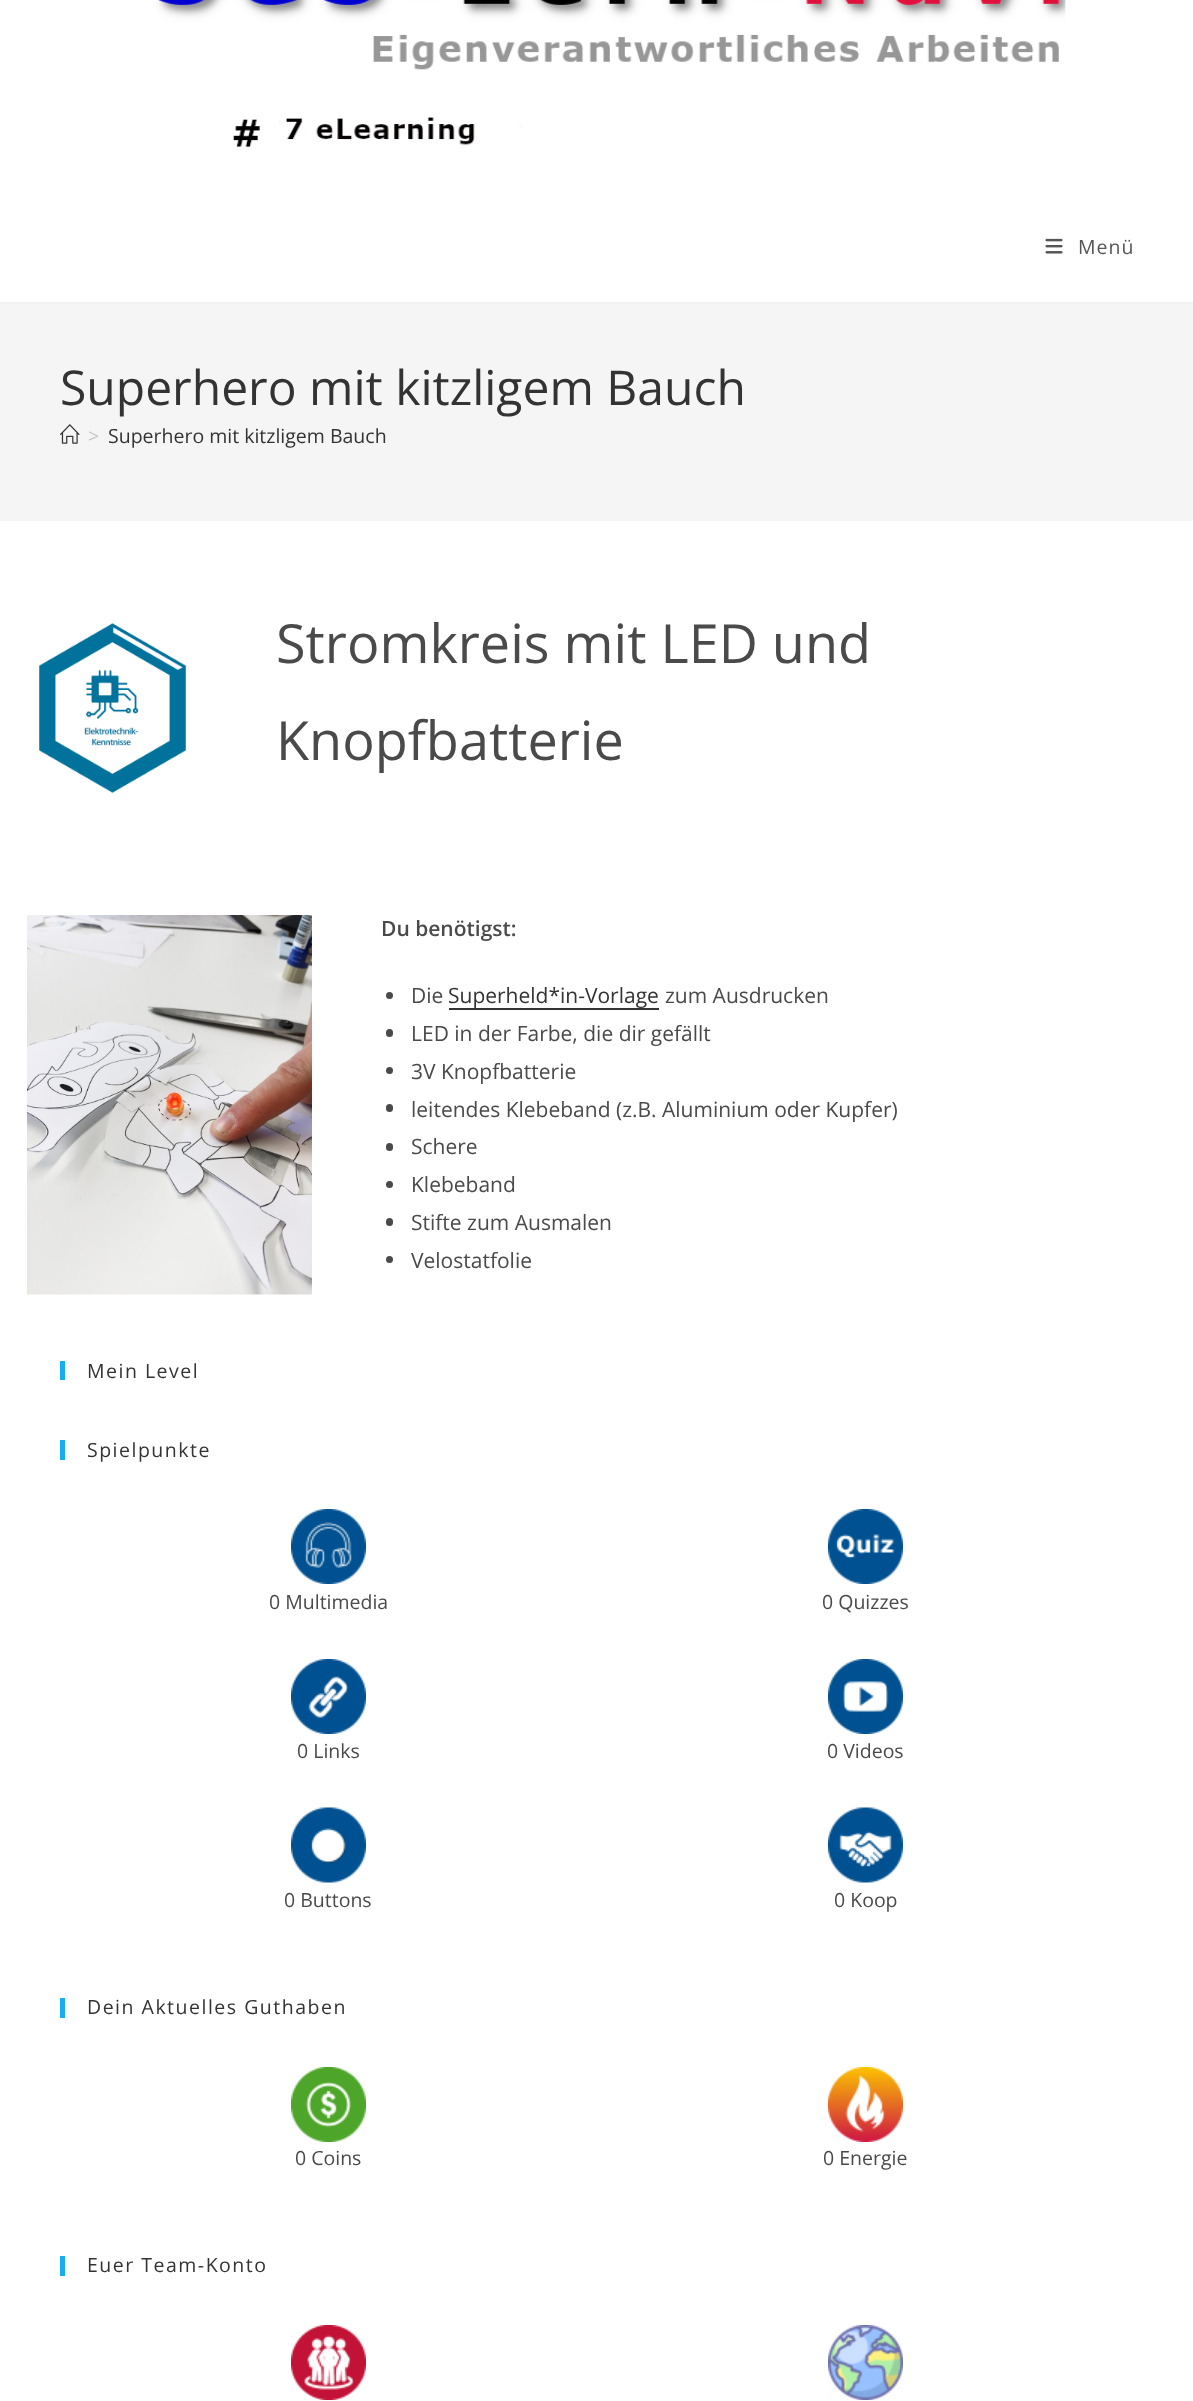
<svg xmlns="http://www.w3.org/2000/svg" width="1193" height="2401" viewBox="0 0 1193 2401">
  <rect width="100%" height="100%" fill="rgb(255,255,255)"/>
  <rect x="0" y="302" width="1193" height="2" fill="rgb(241,241,241)"/>
  <image x="156" y="0" width="910" height="147" href="pic1.png"/>
  <image x="1045" y="238" width="18" height="16" href="pic2.png"/>
  <text x="1078" y="254" font-family="Open Sans" font-size="19.5" letter-spacing="1" fill="rgb(85,85,85)">Menü</text>
  <rect x="0" y="304" width="1193" height="217" fill="rgb(245,245,245)"/>
  <text x="60" y="405" font-family="Open Sans" font-size="48" fill="rgb(51,51,51)">Superhero mit kitzligem Bauch</text>
  <image x="60" y="424" width="20" height="20" href="pic3.png"/>
  <text x="88" y="443" font-family="Open Sans" font-size="19.5" fill="rgb(198,198,198)">&gt;</text>
  <text x="108" y="443" font-family="Open Sans" font-size="19.5" fill="rgb(51,51,51)">Superhero mit kitzligem Bauch</text>
  <image x="39" y="623" width="147" height="170" href="pic4.png"/>
  <g font-family="Open Sans" font-size="54" fill="rgb(74,74,74)">
    <text>
      <tspan x="276" y="663">Stromkreis mit LED und</tspan>
      <tspan x="276" y="760">Knopfbatterie</tspan>
    </text>
  </g>
  <image x="27" y="915" width="285" height="380" href="pic5.png"/>
  <text x="381" y="936" font-family="Open Sans" font-size="21" font-weight="600" fill="rgb(74,74,74)">Du benötigst:</text>
  <circle cx="389.5" cy="995.5" r="3.5" fill="rgb(74,74,74)"/>
  <text x="411" y="1003" font-family="Open Sans" font-size="21" fill="rgb(74,74,74)">Die</text>
  <rect x="449" y="1008" width="210" height="2" fill="rgb(51,51,51)"/>
  <text x="448" y="1003" font-family="Open Sans" font-size="21" fill="rgb(51,51,51)">Superheld*in-Vorlage</text>
  <text x="665" y="1003" font-family="Open Sans" font-size="21" fill="rgb(74,74,74)">zum Ausdrucken</text>
  <rect x="386" y="1029" width="7" height="8" rx="3.5" fill="rgb(74,74,74)"/>
  <text x="411" y="1041" font-family="Open Sans" font-size="21" fill="rgb(74,74,74)">LED in der Farbe, die dir gefällt</text>
  <circle cx="389.5" cy="1070.5" r="3.5" fill="rgb(74,74,74)"/>
  <text x="411" y="1079" font-family="Open Sans" font-size="21" fill="rgb(74,74,74)">3V Knopfbatterie</text>
  <rect x="386" y="1104" width="7" height="8" rx="3.5" fill="rgb(74,74,74)"/>
  <text x="411" y="1117" font-family="Open Sans" font-size="21" fill="rgb(74,74,74)">leitendes Klebeband (z.B. Aluminium oder Kupfer)</text>
  <rect x="386" y="1143" width="7" height="8" rx="3.5" fill="rgb(74,74,74)"/>
  <text x="411" y="1154" font-family="Open Sans" font-size="21" fill="rgb(74,74,74)">Schere</text>
  <circle cx="389.5" cy="1184.5" r="3.5" fill="rgb(74,74,74)"/>
  <text x="411" y="1192" font-family="Open Sans" font-size="21" fill="rgb(74,74,74)">Klebeband</text>
  <rect x="386" y="1218" width="7" height="8" rx="3.5" fill="rgb(74,74,74)"/>
  <text x="411" y="1230" font-family="Open Sans" font-size="21" fill="rgb(74,74,74)">Stifte zum Ausmalen</text>
  <circle cx="389.5" cy="1259.5" r="3.5" fill="rgb(74,74,74)"/>
  <text x="411" y="1268" font-family="Open Sans" font-size="21" fill="rgb(74,74,74)">Velostatfolie</text>
  <rect x="60" y="1361" width="5" height="19" fill="rgb(19,175,240)"/>
  <text x="87" y="1378" font-family="Open Sans" font-size="19.5" letter-spacing="1.5" fill="rgb(51,51,51)">Mein Level</text>
  <rect x="60" y="1440" width="5" height="20" fill="rgb(19,175,240)"/>
  <text x="87" y="1457" font-family="Open Sans" font-size="19.5" letter-spacing="1.5" fill="rgb(51,51,51)">Spielpunkte</text>
  <image x="291" y="1509" width="75" height="75" href="pic6.png"/>
  <text x="269" y="1609" font-family="Open Sans" font-size="19.5" fill="rgb(74,74,74)">0 Multimedia</text>
  <image x="828" y="1509" width="75" height="75" href="pic7.png"/>
  <text x="822" y="1609" font-family="Open Sans" font-size="19.5" fill="rgb(74,74,74)">0 Quizzes</text>
  <image x="291" y="1659" width="75" height="75" href="pic8.png"/>
  <text x="297" y="1758" font-family="Open Sans" font-size="19.5" fill="rgb(74,74,74)">0 Links</text>
  <image x="828" y="1659" width="75" height="75" href="pic9.png"/>
  <text x="827" y="1758" font-family="Open Sans" font-size="19.5" fill="rgb(74,74,74)">0 Videos</text>
  <image x="291" y="1807" width="75" height="76" href="pic10.png"/>
  <text x="284" y="1907" font-family="Open Sans" font-size="19.5" fill="rgb(74,74,74)">0 Buttons</text>
  <image x="828" y="1807" width="75" height="76" href="pic11.png"/>
  <text x="834" y="1907" font-family="Open Sans" font-size="19.5" fill="rgb(74,74,74)">0 Koop</text>
  <rect x="60" y="1998" width="5" height="20" fill="rgb(19,175,240)"/>
  <text x="87" y="2014" font-family="Open Sans" font-size="19.5" letter-spacing="1.5" fill="rgb(51,51,51)">Dein Aktuelles Guthaben</text>
  <image x="291" y="2067" width="75" height="75" href="pic12.png"/>
  <text x="295" y="2165" font-family="Open Sans" font-size="19.5" fill="rgb(74,74,74)">0 Coins</text>
  <image x="828" y="2067" width="75" height="75" href="pic13.png"/>
  <text x="823" y="2165" font-family="Open Sans" font-size="19.5" fill="rgb(74,74,74)">0 Energie</text>
  <rect x="60" y="2256" width="5" height="20" fill="rgb(19,175,240)"/>
  <text x="87" y="2272" font-family="Open Sans" font-size="19.5" letter-spacing="1.5" fill="rgb(51,51,51)">Euer Team-Konto</text>
  <image x="291" y="2325" width="75" height="75" href="pic14.png"/>
  <image x="828" y="2325" width="75" height="75" href="pic15.png"/>
</svg>
